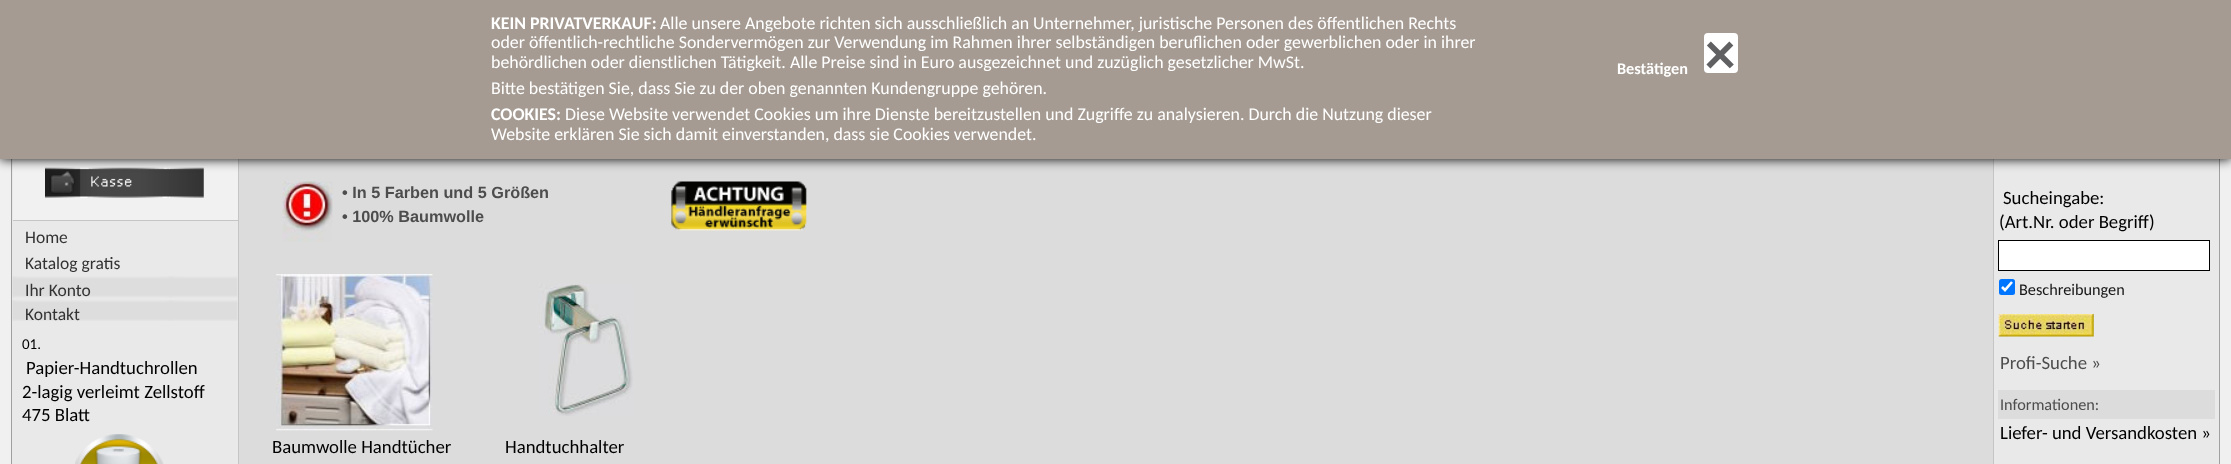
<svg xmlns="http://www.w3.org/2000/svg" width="2231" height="464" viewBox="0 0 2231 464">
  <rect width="100%" height="100%" fill="rgb(240,240,240)"/>
  <rect x="12" y="159" width="226" height="305" fill="rgb(233,233,233)"/>
  <rect x="238" y="159" width="1" height="305" fill="rgb(197,197,197)"/>
  <rect x="11" y="159" width="1" height="305" fill="rgb(160,160,160)"/>
  <rect x="13" y="159" width="225" height="61" fill="rgb(241,241,241)"/>
  <image x="45" y="167" width="159" height="31" href="pic1.png"/>
  <rect x="239" y="159" width="1754" height="305" fill="rgb(220,220,221)"/>
  <rect x="1994" y="159" width="225" height="305" fill="rgb(233,233,233)"/>
  <rect x="2219" y="159" width="1" height="305" fill="rgb(160,160,160)"/>
  <rect x="1993" y="159" width="1" height="305" fill="rgb(197,197,197)"/>
  <rect x="0" y="-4" width="2231" height="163" fill="rgb(0,0,0)" filter="blur(6px)"/>
  <rect x="0" y="0" width="2231" height="159" fill="rgb(165,155,146)"/>
  <text x="491" y="29" font-family="Carlito" font-size="17.88" font-weight="bold" fill="rgb(255,255,255)">KEIN PRIVATVERKAUF:</text>
  <g font-family="Carlito" font-size="17.88" fill="rgb(255,255,255)">
    <text x="660" y="29">Alle unsere Angebote richten sich ausschließlich an Unternehmer, juristische Personen des öffentlichen Rechts</text>
    <text>
      <tspan x="491" y="48">oder öffentlich-rechtliche Sondervermögen zur Verwendung im Rahmen ihrer selbständigen beruflichen oder gewerblichen oder in ihrer</tspan>
      <tspan x="491" y="68">behördlichen oder dienstlichen Tätigkeit. Alle Preise sind in Euro ausgezeichnet und zuzüglich gesetzlicher MwSt.</tspan>
      <tspan x="491" y="94">Bitte bestätigen Sie, dass Sie zu der oben genannten Kundengruppe gehören.</tspan>
    </text>
  </g>
  <text x="491" y="120" font-family="Carlito" font-size="17.88" font-weight="bold" fill="rgb(255,255,255)">COOKIES:</text>
  <g font-family="Carlito" font-size="17.88" fill="rgb(255,255,255)">
    <text x="565" y="120">Diese Website verwendet Cookies um ihre Dienste bereitzustellen und Zugriffe zu analysieren. Durch die Nutzung dieser</text>
    <text x="491" y="140">Website erklären Sie sich damit einverstanden, dass sie Cookies verwendet.</text>
  </g>
  <text x="1617" y="74" font-family="Carlito" font-size="16.25" font-weight="bold" fill="rgb(255,255,255)">Bestätigen</text>
  <rect x="1704" y="33" width="34" height="40" rx="4" fill="rgb(255,255,255)"/>
  <text x="1705" y="74" font-family="Carlito" font-size="61" font-weight="bold" fill="rgb(96,95,97)">×</text>
  <rect x="13" y="220" width="225" height="1" fill="rgb(197,197,197)"/>
  <g font-family="Carlito" font-size="17.5" fill="rgb(51,51,51)">
    <text>
      <tspan x="25" y="243">Home</tspan>
      <tspan x="25" y="269">Katalog gratis</tspan>
    </text>
  </g>
  <image x="12" y="276" width="226" height="22" href="pic2.png"/>
  <text x="25" y="296" font-family="Carlito" font-size="17.5" fill="rgb(51,51,51)">Ihr Konto</text>
  <image x="12" y="300" width="226" height="21" href="pic3.png"/>
  <text x="25" y="320" font-family="Carlito" font-size="17.5" fill="rgb(51,51,51)">Kontakt</text>
  <text x="22" y="349" font-family="Carlito" font-size="15" fill="rgb(0,0,0)">01.</text>
  <g font-family="Carlito" font-size="18.75" fill="rgb(0,0,0)">
    <text x="26" y="374">Papier-Handtuchrollen</text>
    <text>
      <tspan x="22" y="398">2-lagig verleimt Zellstoff</tspan>
      <tspan x="22" y="421">475 Blatt</tspan>
    </text>
  </g>
  <image x="75" y="434" width="89" height="30" href="pic4.png"/>
  <image x="282" y="181" width="51" height="61" href="pic5.png"/>
  <g font-family="Liberation Sans" font-size="16.25" font-weight="bold" fill="rgb(77,77,77)">
    <text>
      <tspan x="342" y="198">• In 5 Farben und 5 Größen</tspan>
      <tspan x="342" y="222">• 100% Baumwolle</tspan>
    </text>
  </g>
  <image x="671" y="181" width="136" height="50" href="pic6.png"/>
  <image x="276" y="274" width="157" height="157" href="pic7.png"/>
  <text x="272" y="453" font-family="Carlito" font-size="18.75" fill="rgb(0,0,0)">Baumwolle Handtücher</text>
  <image x="539" y="284" width="94" height="132" href="pic8.png"/>
  <g font-family="Carlito" font-size="18.75" fill="rgb(0,0,0)">
    <text x="505" y="453">Handtuchhalter</text>
    <text x="2003" y="204">Sucheingabe:</text>
    <text x="1999" y="228">(Art.Nr. oder Begriff)</text>
  </g>
  <rect x="1998.5" y="240.5" width="211" height="30" fill="rgb(255,255,255)" stroke="rgb(0,0,0)"/>
  <rect x="1999" y="279" width="16" height="16" rx="2.5" fill="rgb(0,117,255)"/>
  <path d="M2002 287L2005 290L2012 282" fill="none" stroke="rgb(255,255,255)" stroke-width="2.6"/>
  <text x="2019" y="295" font-family="Carlito" font-size="16.25" fill="rgb(23,23,23)">Beschreibungen</text>
  <image x="1998" y="314" width="96" height="23" href="pic9.png"/>
  <text x="2000" y="369" font-family="Carlito" font-size="18.75" fill="rgb(77,77,77)">Profi-Suche »</text>
  <rect x="1998" y="390" width="217" height="29" fill="rgb(220,220,220)"/>
  <text x="2000" y="410" font-family="Carlito" font-size="16.25" fill="rgb(77,77,77)">Informationen:</text>
  <text x="2000" y="439" font-family="Carlito" font-size="18.75" fill="rgb(0,0,0)">Liefer- und Versandkosten »</text>
</svg>
